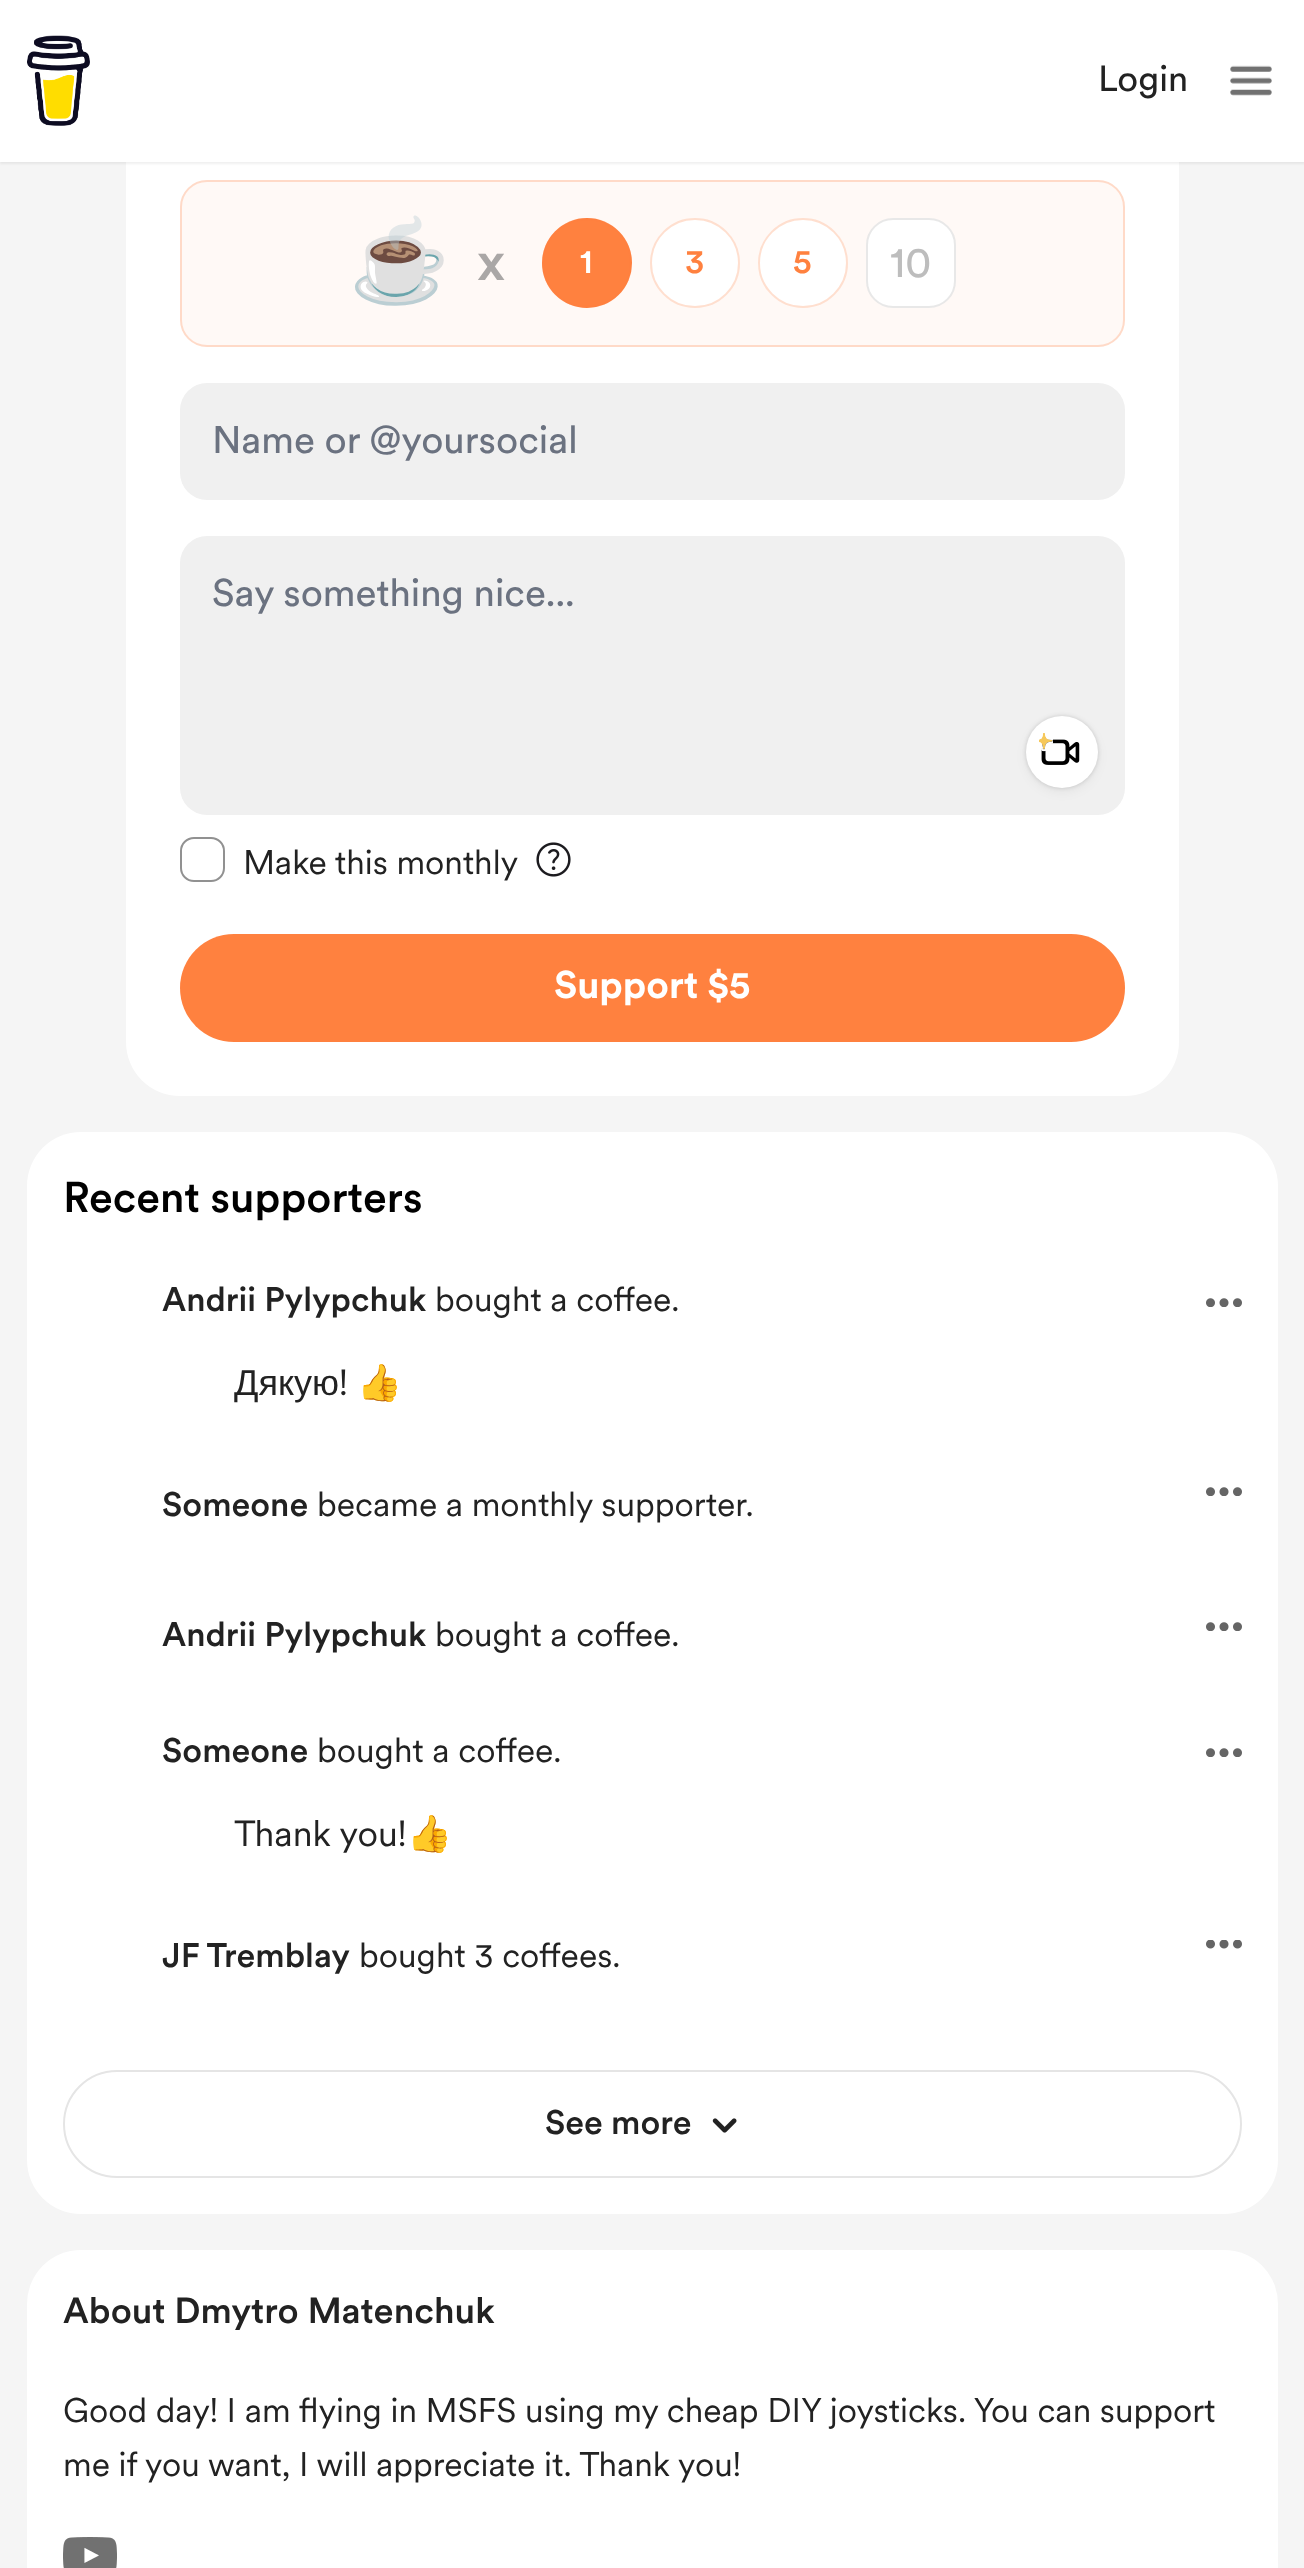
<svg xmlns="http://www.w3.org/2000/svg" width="1304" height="2568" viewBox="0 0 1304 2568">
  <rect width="100%" height="100%" fill="rgb(245,245,245)"/>
  <rect x="126" y="9" width="1053" height="1087" rx="54" fill="rgb(255,255,255)"/>
  <rect x="0" y="2" width="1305" height="162" fill="rgba(0,0,0,0.06)" filter="blur(1px)"/>
  <rect x="0" y="0" width="1304" height="162" fill="rgb(255,255,255)"/>
  <image x="27" y="35" width="63" height="91" href="pic1.png"/>
  <text x="1098" y="91" font-family="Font" font-size="36" fill="rgb(34,34,34)">Login</text>
  <image x="1230" y="65" width="42" height="31" href="pic2.png"/>
  <rect x="180" y="180" width="945" height="167" rx="27" fill="rgb(255,249,246)"/>
  <rect x="181" y="181" width="943" height="165" rx="26" fill="none" stroke="rgba(255,129,63,0.25)" stroke-width="2"/>
  <text x="349" y="289" font-family="Noto Color Emoji" font-size="81" fill="rgb(0,0,0)">☕</text>
  <text x="477" y="280" font-family="Font" font-size="54" font-weight="500" fill="rgb(170,167,166)">x</text>
  <circle cx="587" cy="263" r="45" fill="rgb(255,129,63)"/>
  <circle cx="587" cy="263" r="44" fill="none" stroke="rgba(255,129,63,0.25)" stroke-width="2"/>
  <text x="580" y="273" font-family="Font" font-size="33.75" font-weight="500" fill="rgb(255,255,255)">1</text>
  <circle cx="695" cy="263" r="45" fill="rgb(255,255,255)"/>
  <circle cx="695" cy="263" r="44" fill="none" stroke="rgba(255,129,63,0.25)" stroke-width="2"/>
  <text x="685" y="273" font-family="Font" font-size="33.75" font-weight="500" fill="rgb(255,129,63)">3</text>
  <circle cx="803" cy="263" r="45" fill="rgb(255,255,255)"/>
  <circle cx="803" cy="263" r="44" fill="none" stroke="rgba(255,129,63,0.25)" stroke-width="2"/>
  <text x="793" y="273" font-family="Font" font-size="33.75" font-weight="500" fill="rgb(255,129,63)">5</text>
  <rect x="866" y="218" width="90" height="90" rx="27" fill="rgb(255,255,255)"/>
  <rect x="867" y="219" width="88" height="88" rx="26" fill="none" stroke="rgba(34,34,34,0.1)" stroke-width="2"/>
  <text x="890" y="277" font-family="Font" font-size="42.75" fill="rgb(189,189,189)">10</text>
  <rect x="180" y="383" width="945" height="117" rx="27" fill="rgb(240,240,240)"/>
  <text x="212" y="453" font-family="Font" font-size="38.25" fill="rgb(107,114,128)">Name or @yoursocial</text>
  <rect x="180" y="536" width="945" height="279" rx="27" fill="rgb(240,240,240)"/>
  <text x="212" y="606" font-family="Font" font-size="38.25" fill="rgb(107,114,128)">Say something nice...</text>
  <rect x="1026" y="720" width="72" height="72" rx="36" fill="rgba(0,0,0,0.05)" filter="blur(5.5px)"/>
  <rect x="1026" y="716" width="72" height="72" rx="36" fill="rgba(0,0,0,0.15)" filter="blur(2px)"/>
  <circle cx="1062" cy="752" r="36" fill="rgb(255,255,255)"/>
  <image x="1041" y="739" width="39" height="26" href="pic4.png"/>
  <image x="1039" y="733" width="14" height="19" href="pic3.png"/>
  <rect x="181" y="838" width="43" height="43" rx="13" fill="none" stroke="rgb(145,145,145)" stroke-width="2"/>
  <text x="243" y="874" font-family="'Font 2'" font-size="33.75" fill="rgb(34,34,34)">Make this monthly</text>
  <image x="536" y="842" width="35" height="35" href="pic5.png"/>
  <rect x="180" y="934" width="945" height="108" rx="54" fill="rgb(255,129,63)"/>
  <text x="554" y="998" font-family="Font" font-size="38.25" font-weight="bold" fill="rgb(255,255,255)">Support $5</text>
  <rect x="27" y="1132" width="1251" height="1082" rx="54" fill="rgb(255,255,255)"/>
  <text x="63" y="1212" font-family="Font" font-size="42.75" font-weight="500" fill="rgb(0,0,0)">Recent supporters</text>
  <text x="162" y="1311" font-family="Font" font-size="33.75" font-weight="500" fill="rgb(34,34,34)">Andrii Pylypchuk</text>
  <text x="435" y="1311" font-family="'Font 2'" font-size="33.75" fill="rgb(34,34,34)">bought a coffee.</text>
  <text x="234" y="1395" font-family="Liberation Sans" font-size="36" fill="rgb(34,34,34)">Дякую</text>
  <text x="339" y="1395" font-family="'Font 2'" font-size="36" fill="rgb(34,34,34)">!</text>
  <text x="357" y="1395" font-family="Noto Color Emoji" font-size="36" fill="rgb(34,34,34)">👍️</text>
  <image x="1206" y="1298" width="36" height="9" href="pic6.png"/>
  <text x="162" y="1516" font-family="Font" font-size="33.75" font-weight="500" fill="rgb(34,34,34)">Someone</text>
  <text x="317" y="1516" font-family="'Font 2'" font-size="33.75" fill="rgb(34,34,34)">became a monthly supporter.</text>
  <image x="1206" y="1487" width="36" height="9" href="pic6.png"/>
  <text x="162" y="1646" font-family="Font" font-size="33.75" font-weight="500" fill="rgb(34,34,34)">Andrii Pylypchuk</text>
  <text x="435" y="1646" font-family="'Font 2'" font-size="33.75" fill="rgb(34,34,34)">bought a coffee.</text>
  <image x="1206" y="1622" width="36" height="9" href="pic6.png"/>
  <text x="162" y="1762" font-family="Font" font-size="33.75" font-weight="500" fill="rgb(34,34,34)">Someone</text>
  <text x="317" y="1762" font-family="'Font 2'" font-size="33.75" fill="rgb(34,34,34)">bought a coffee.</text>
  <text x="234" y="1846" font-family="'Font 2'" font-size="36" fill="rgb(34,34,34)">Thank you!</text>
  <text x="407" y="1846" font-family="Noto Color Emoji" font-size="36" fill="rgb(34,34,34)">👍</text>
  <image x="1206" y="1748" width="36" height="9" href="pic6.png"/>
  <text x="162" y="1967" font-family="Font" font-size="33.75" font-weight="500" fill="rgb(34,34,34)">JF Tremblay</text>
  <text x="359" y="1967" font-family="'Font 2'" font-size="33.75" fill="rgb(34,34,34)">bought 3 coffees.</text>
  <image x="1206" y="1940" width="36" height="9" href="pic7.png"/>
  <rect x="64" y="2071" width="1177" height="106" rx="53" fill="none" stroke="rgb(229,229,229)" stroke-width="2"/>
  <text x="545" y="2134" font-family="Font" font-size="33.75" font-weight="500" fill="rgb(34,34,34)">See more</text>
  <image x="712" y="2118" width="25" height="15" href="pic8.png"/>
  <rect x="27" y="2250" width="1251" height="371" rx="54" fill="rgb(255,255,255)"/>
  <text x="63" y="2323" font-family="Font" font-size="36" font-weight="500" fill="rgb(34,34,34)">About Dmytro Matenchuk</text>
  <g font-family="'Font 2'" font-size="33.75" fill="rgb(34,34,34)">
    <text>
      <tspan x="63" y="2422">Good day! I am flying in MSFS using my cheap DIY joysticks. You can support</tspan>
      <tspan x="63" y="2476">me if you want, I will appreciate it. Thank you!</tspan>
    </text>
  </g>
  <image x="63" y="2537" width="54" height="31" href="pic9.png"/>
</svg>
